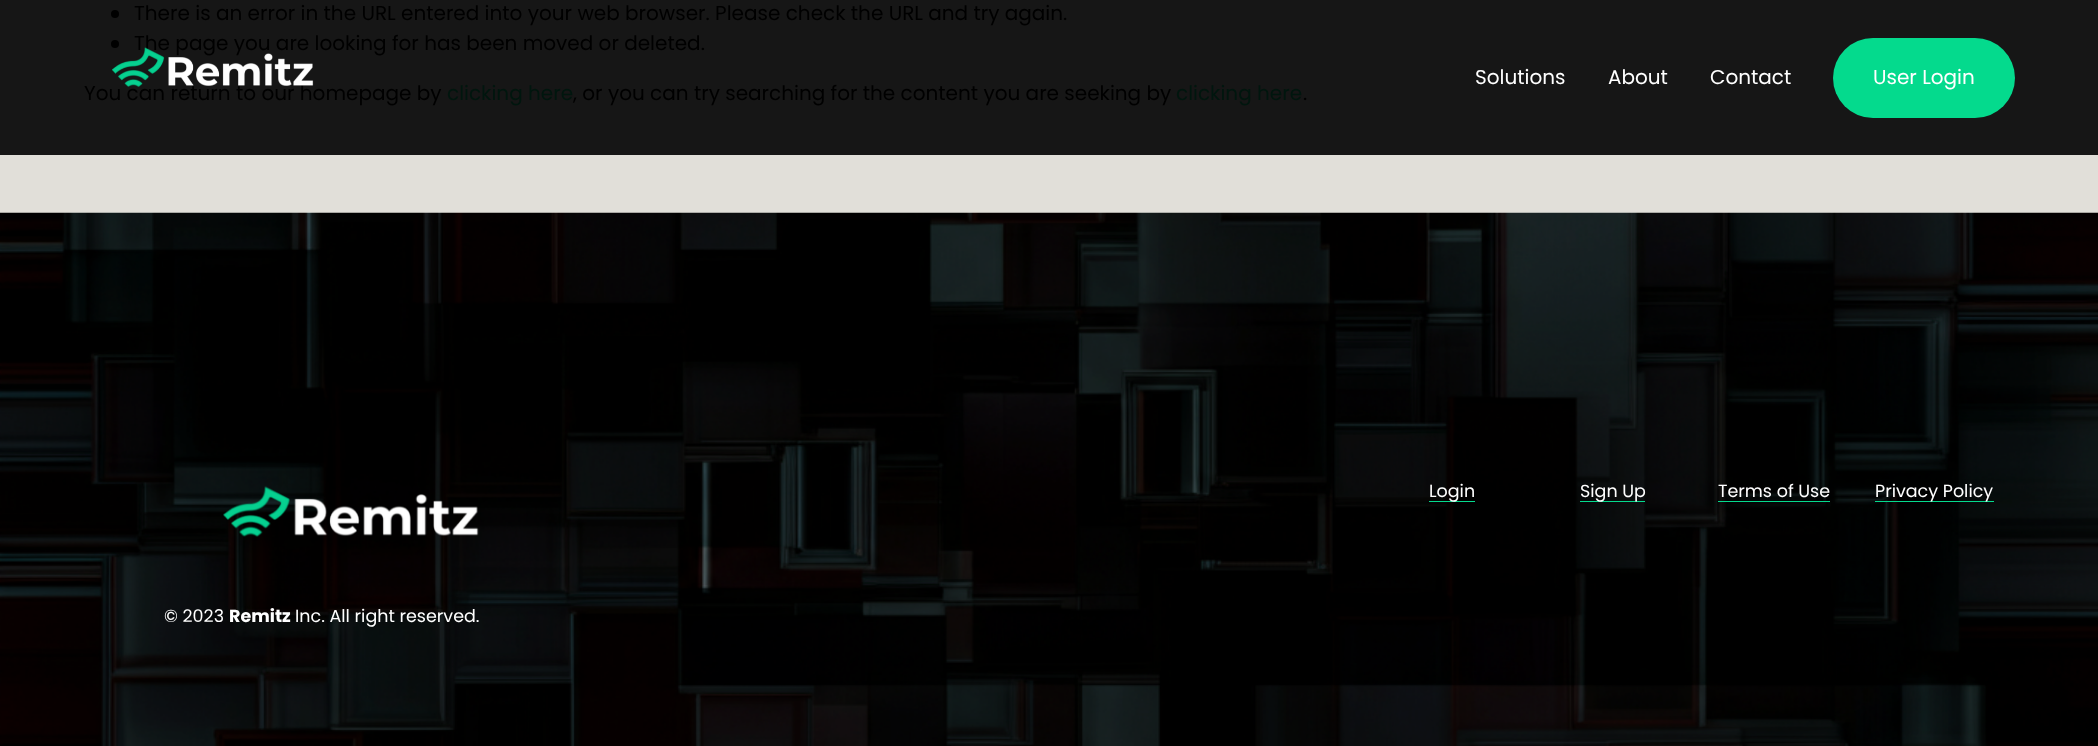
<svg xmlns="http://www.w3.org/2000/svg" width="2098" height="746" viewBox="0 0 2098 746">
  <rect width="100%" height="100%" fill="rgb(225,223,217)"/>
  <rect x="0" y="0" width="2098" height="155" fill="rgb(22,22,22)"/>
  <circle cx="115" cy="14" r="4" fill="rgb(0,0,0)"/>
  <text x="134" y="20" font-family="Poppins" font-size="20" fill="rgb(0,0,0)">There is an error in the URL entered into your web browser. Please check the URL and try again.</text>
  <circle cx="115" cy="44" r="4" fill="rgb(0,0,0)"/>
  <g font-family="Poppins" font-size="20" fill="rgb(0,0,0)">
    <text x="134" y="50">The page you are looking for has been moved or deleted.</text>
    <text x="84" y="100">You can return to our homepage by</text>
  </g>
  <text x="447" y="100" font-family="Poppins" font-size="20" fill="rgb(0,22,14)">clicking here</text>
  <text x="573" y="100" font-family="Poppins" font-size="20" fill="rgb(0,0,0)">, or you can try searching for the content you are seeking by</text>
  <text x="1176" y="100" font-family="Poppins" font-size="20" fill="rgb(0,22,14)">clicking here</text>
  <text x="1303" y="100" font-family="Poppins" font-size="20" fill="rgb(0,0,0)">.</text>
  <image x="112" y="47" width="202" height="40" href="pic1.png"/>
  <g font-family="Poppins" font-size="20" fill="rgb(255,255,255)">
    <text x="1475" y="84">Solutions</text>
    <text x="1608" y="84">About</text>
    <text x="1710" y="84">Contact</text>
  </g>
  <rect x="1833" y="38" width="182" height="80" rx="40" fill="rgb(4,218,141)"/>
  <text x="1873" y="84" font-family="Poppins" font-size="20" fill="rgb(255,255,255)">User Login</text>
  <image x="0" y="212" width="2098" height="534" href="pic2.png"/>
  <image x="223" y="486" width="256" height="51" href="pic3.png"/>
  <rect x="1429" y="501" width="46" height="1" fill="rgb(4,218,141)"/>
  <text x="1429" y="497" font-family="Poppins" font-size="17.5" fill="rgb(255,255,255)">Login</text>
  <rect x="1580" y="501" width="65" height="1" fill="rgb(4,218,141)"/>
  <g font-family="Poppins" font-size="17.5" fill="rgb(255,255,255)">
    <text x="1580" y="497">Sign Up</text>
    <text x="1718" y="497">Terms of Use</text>
  </g>
  <rect x="1718" y="501" width="112" height="1" fill="rgb(4,218,141)"/>
  <rect x="1875" y="501" width="119" height="1" fill="rgb(4,218,141)"/>
  <g font-family="Poppins" font-size="17.5" fill="rgb(255,255,255)">
    <text x="1875" y="497">Privacy Policy</text>
    <text x="164" y="622">© 2023</text>
  </g>
  <text x="229" y="622" font-family="Poppins" font-size="17.5" font-weight="bold" fill="rgb(255,255,255)">Remitz</text>
  <text x="295" y="622" font-family="Poppins" font-size="17.5" fill="rgb(255,255,255)">Inc. All right reserved.</text>
</svg>
